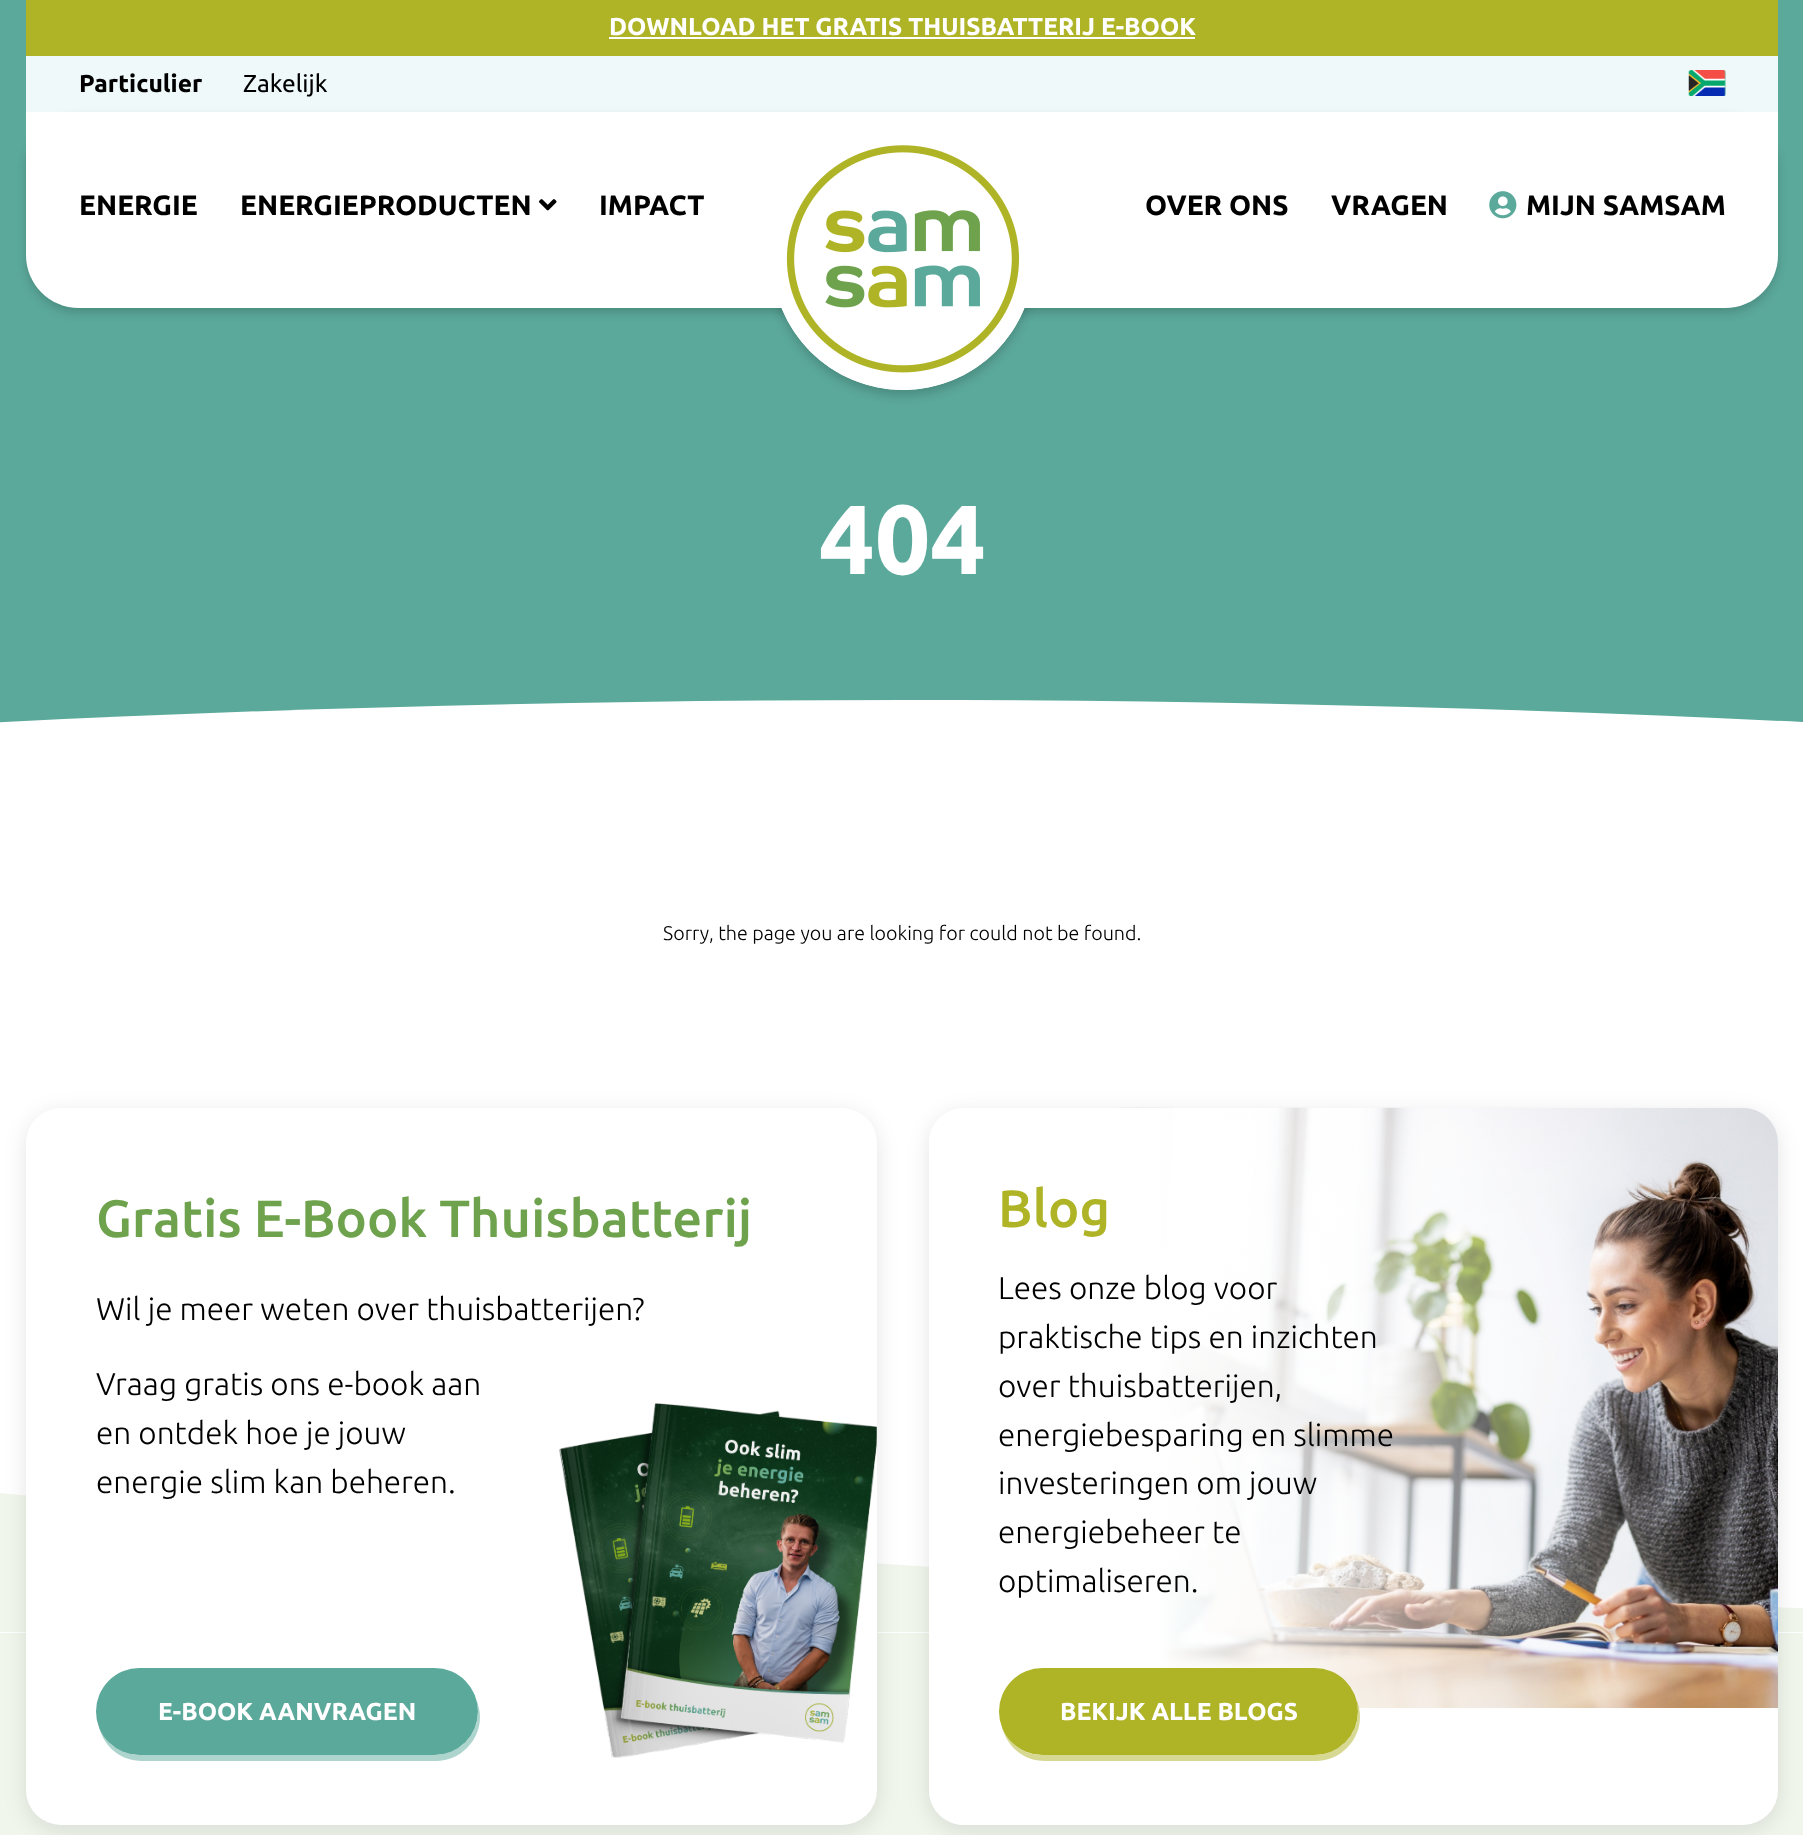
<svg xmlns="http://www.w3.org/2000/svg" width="1803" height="1835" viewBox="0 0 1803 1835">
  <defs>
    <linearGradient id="g1" gradientUnits="userSpaceOnUse" x1="929" y1="1467" x2="1692" y2="1467"><stop offset="0.3" stop-color="rgb(255,255,255)"/><stop offset="1" stop-color="rgb(255,255,255)" stop-opacity="0"/></linearGradient>
  </defs>
  <rect width="100%" height="100%" fill="rgb(255,255,255)"/>
  <rect x="0" y="0" width="1803" height="723" fill="rgb(91,169,155)"/>
  <rect x="26" y="0" width="1752" height="56" fill="rgb(175,180,39)"/>
  <text x="609" y="35" font-family="Ubuntu" font-size="24.5" font-weight="bold" fill="rgb(255,255,255)">DOWNLOAD HET GRATIS THUISBATTERIJ E-BOOK</text>
  <rect x="609" y="37" width="586" height="2" fill="rgb(255,255,255)"/>
  <rect x="26" y="56" width="1752" height="56" fill="rgb(239,249,250)"/>
  <text x="79" y="92" font-family="Ubuntu" font-size="24.5" font-weight="bold" fill="rgb(0,0,0)">Particulier</text>
  <text x="243" y="92" font-family="Ubuntu" font-size="24.5" fill="rgb(0,0,0)">Zakelijk</text>
  <image x="1688" y="70" width="38" height="26" href="pic1.png"/>
  <rect x="772" y="133" width="262" height="263" rx="131" fill="rgba(0,0,0,0.16)" filter="blur(5px)"/>
  <rect x="26" y="117" width="1752" height="196" rx="53" fill="rgba(0,0,0,0.16)" filter="blur(5px)"/>
  <path d="M26 112H1778V255C1778 284.5 1754.5 308 1725 308H79C49.5 308 26 284.5 26 255Z" fill="rgb(255,255,255)"/>
  <g font-family="Ubuntu" font-size="28" font-weight="bold" fill="rgb(0,0,0)">
    <text x="79" y="215">ENERGIE</text>
    <text x="240" y="215">ENERGIEPRODUCTEN</text>
  </g>
  <image x="539" y="199" width="18" height="12" href="pic2.png"/>
  <text x="599" y="215" font-family="Ubuntu" font-size="28" font-weight="bold" fill="rgb(0,0,0)">IMPACT</text>
  <circle cx="903" cy="259" r="131" fill="rgb(255,255,255)"/>
  <image x="781" y="145" width="244" height="245" href="pic3.png"/>
  <g font-family="Ubuntu" font-size="28" font-weight="bold" fill="rgb(0,0,0)">
    <text x="1145" y="215">OVER ONS</text>
    <text x="1331" y="215">VRAGEN</text>
  </g>
  <image x="1489" y="191" width="28" height="28" href="pic4.png"/>
  <text x="1526" y="215" font-family="Ubuntu" font-size="28" font-weight="bold" fill="rgb(0,0,0)">MIJN SAMSAM</text>
  <text x="819" y="574" font-family="Ubuntu" font-size="98" font-weight="bold" fill="rgb(255,255,255)">404</text>
  <path d="M903 700C315 700-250 728-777 778V788H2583V778C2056 728 1491 700 903 700Z" fill="rgb(255,255,255)"/>
  <text x="663" y="940" font-family="Ubuntu" font-size="19.7" font-weight="300" fill="rgb(0,0,0)">Sorry, the page you are looking for could not be found.</text>
  <rect x="0" y="1633" width="1803" height="202" fill="rgb(241,246,237)"/>
  <path d="M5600 1632H0V1493C930 1583 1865 1624 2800 1624C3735 1624 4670 1583 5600 1493Z" fill="rgb(241,246,237)"/>
  <rect x="26" y="1113" width="851" height="718" rx="35" fill="rgba(0,0,0,0.1)" filter="blur(10.5px)"/>
  <rect x="26" y="1108" width="851" height="717" rx="35" fill="rgb(255,255,255)"/>
  <text x="96" y="1237" font-family="Ubuntu" font-size="52.5" font-weight="500" fill="rgb(110,162,77)">Gratis E-Book Thuisbatterij</text>
  <g font-family="Ubuntu" font-size="31.5" font-weight="300" fill="rgb(0,0,0)">
    <text x="96" y="1320">Wil je meer weten over thuisbatterijen?</text>
    <text>
      <tspan x="96" y="1395">Vraag gratis ons e-book aan</tspan>
      <tspan x="96" y="1444">en ontdek hoe je jouw</tspan>
      <tspan x="96" y="1493">energie slim kan beheren.</tspan>
    </text>
  </g>
  <path d="M99 1727C104 1747 121 1761 142 1761H436C460 1761 480 1741 480 1717C480 1710 478 1703 475 1698C477 1702 478 1707 478 1712C478 1736 458 1755 434 1755H140C121 1755 106 1744 99 1727Z" fill="rgb(173,212,205)"/>
  <rect x="96" y="1668" width="382" height="87" rx="43.5" fill="rgb(91,169,155)"/>
  <text x="158" y="1720" font-family="Ubuntu" font-size="24.5" font-weight="bold" fill="rgb(255,255,255)">E-BOOK AANVRAGEN</text>
  <image x="559" y="1403" width="318" height="355" href="pic5.png"/>
  <rect x="929" y="1113" width="849" height="718" rx="35" fill="rgba(0,0,0,0.1)" filter="blur(10.5px)"/>
  <rect x="929" y="1108" width="849" height="717" rx="35" fill="rgb(255,255,255)"/>
  <image x="1008" y="1107" width="770" height="601" href="pic6.png"/>
  <path d="M964 1108H1692V1825H964C944.5 1825 929 1809.5 929 1790V1143C929 1123.5 944.5 1108 964 1108Z" fill="url(#g1)"/>
  <text x="998" y="1227" font-family="Ubuntu" font-size="52.5" font-weight="500" fill="rgb(175,180,39)">Blog</text>
  <g font-family="Ubuntu" font-size="31.5" font-weight="300" fill="rgb(0,0,0)">
    <text>
      <tspan x="998" y="1299">Lees onze blog voor</tspan>
      <tspan x="998" y="1348">praktische tips en inzichten</tspan>
      <tspan x="998" y="1397">over thuisbatterijen,</tspan>
      <tspan x="998" y="1446">energiebesparing en slimme</tspan>
      <tspan x="998" y="1494">investeringen om jouw</tspan>
      <tspan x="998" y="1543">energiebeheer te</tspan>
      <tspan x="998" y="1592">optimaliseren.</tspan>
    </text>
  </g>
  <path d="M1002 1727C1007 1747 1024 1761 1045 1761H1316C1340 1761 1360 1741 1360 1717C1360 1711 1359 1705 1356 1699C1357 1703 1358 1707 1358 1712C1358 1736 1338 1755 1314 1755H1043C1024 1755 1009 1744 1002 1727Z" fill="rgba(175,180,39,0.5)"/>
  <rect x="999" y="1668" width="359" height="87" rx="43.5" fill="rgb(175,180,39)"/>
  <text x="1060" y="1720" font-family="Ubuntu" font-size="24.5" font-weight="bold" fill="rgb(255,255,255)">BEKIJK ALLE BLOGS</text>
</svg>
